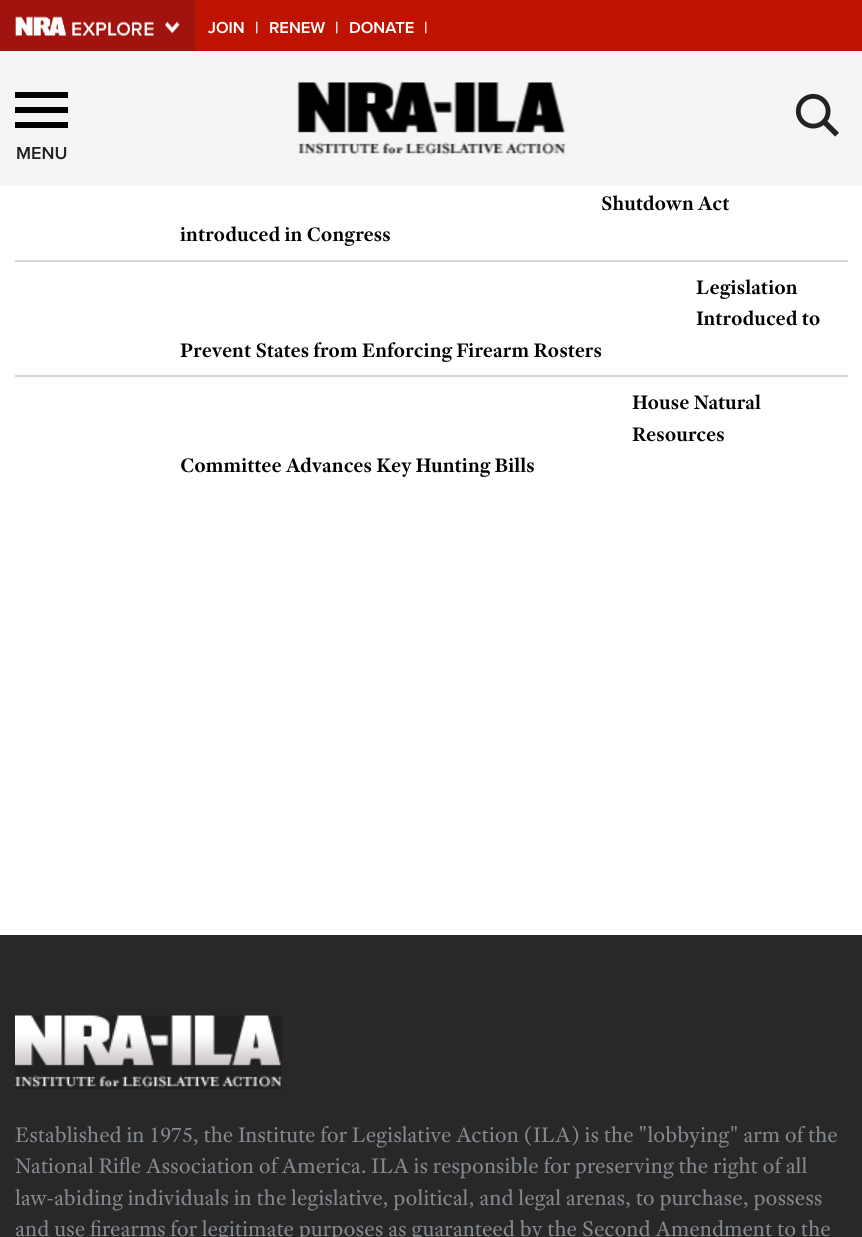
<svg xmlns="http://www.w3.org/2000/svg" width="862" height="1237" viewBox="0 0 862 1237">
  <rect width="100%" height="100%" fill="rgb(255,255,255)"/>
  <rect x="195" y="0" width="667" height="51" fill="rgb(189,19,0)"/>
  <rect x="0" y="0" width="195" height="51" fill="rgb(161,19,14)"/>
  <image x="15" y="16" width="165" height="21" href="pic1.png"/>
  <g font-family="Proxima Nova" font-size="16.5" font-weight="600" fill="rgb(255,255,255)">
    <text x="208" y="33">JOIN</text>
    <text x="255" y="33">|</text>
    <text x="269" y="33">RENEW</text>
    <text x="335" y="33">|</text>
    <text x="349" y="33">DONATE</text>
    <text x="424" y="33">|</text>
  </g>
  <rect x="0" y="51" width="862" height="135" fill="rgb(245,245,245)"/>
  <image x="297" y="82" width="269" height="73" href="pic2.png"/>
  <image x="795" y="93" width="44" height="44" href="pic3.png"/>
  <rect x="15" y="107" width="53" height="6" fill="rgb(0,0,0)"/>
  <rect x="15" y="92" width="53" height="6" fill="rgb(0,0,0)"/>
  <rect x="15" y="122" width="53" height="6" fill="rgb(0,0,0)"/>
  <text x="16" y="159" font-family="Proxima Nova" font-size="18" font-weight="600" fill="rgb(34,34,34)">MENU</text>
  <rect x="15" y="260" width="833" height="2" fill="rgb(213,213,213)"/>
  <g font-family="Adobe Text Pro" font-size="21" font-weight="bold" fill="rgb(0,0,0)">
    <text x="601" y="210">Shutdown Act</text>
    <text x="180" y="241">introduced in Congress</text>
  </g>
  <rect x="15" y="375" width="833" height="2" fill="rgb(213,213,213)"/>
  <g font-family="Adobe Text Pro" font-size="21" font-weight="bold" fill="rgb(0,0,0)">
    <text>
      <tspan x="696" y="294">Legislation</tspan>
      <tspan x="696" y="325">Introduced to</tspan>
    </text>
    <text x="180" y="357">Prevent States from Enforcing Firearm Rosters</text>
    <text>
      <tspan x="632" y="409">House Natural</tspan>
      <tspan x="632" y="441">Resources</tspan>
    </text>
    <text x="180" y="472">Committee Advances Key Hunting Bills</text>
  </g>
  <rect x="0" y="935" width="862" height="302" fill="rgb(40,40,40)"/>
  <image x="15" y="1015" width="267" height="74" href="pic4.png"/>
  <g font-family="Adobe Text Pro" font-size="22.5" fill="rgb(131,137,143)">
    <text>
      <tspan x="15" y="1142">Established in 1975, the Institute for Legislative Action (ILA) is the "lobbying" arm of the</tspan>
      <tspan x="15" y="1173">National Rifle Association of America. ILA is responsible for preserving the right of all</tspan>
      <tspan x="15" y="1205">law-abiding individuals in the legislative, political, and legal arenas, to purchase, possess</tspan>
      <tspan x="15" y="1236">and use firearms for legitimate purposes as guaranteed by the Second Amendment to the</tspan>
    </text>
  </g>
</svg>
